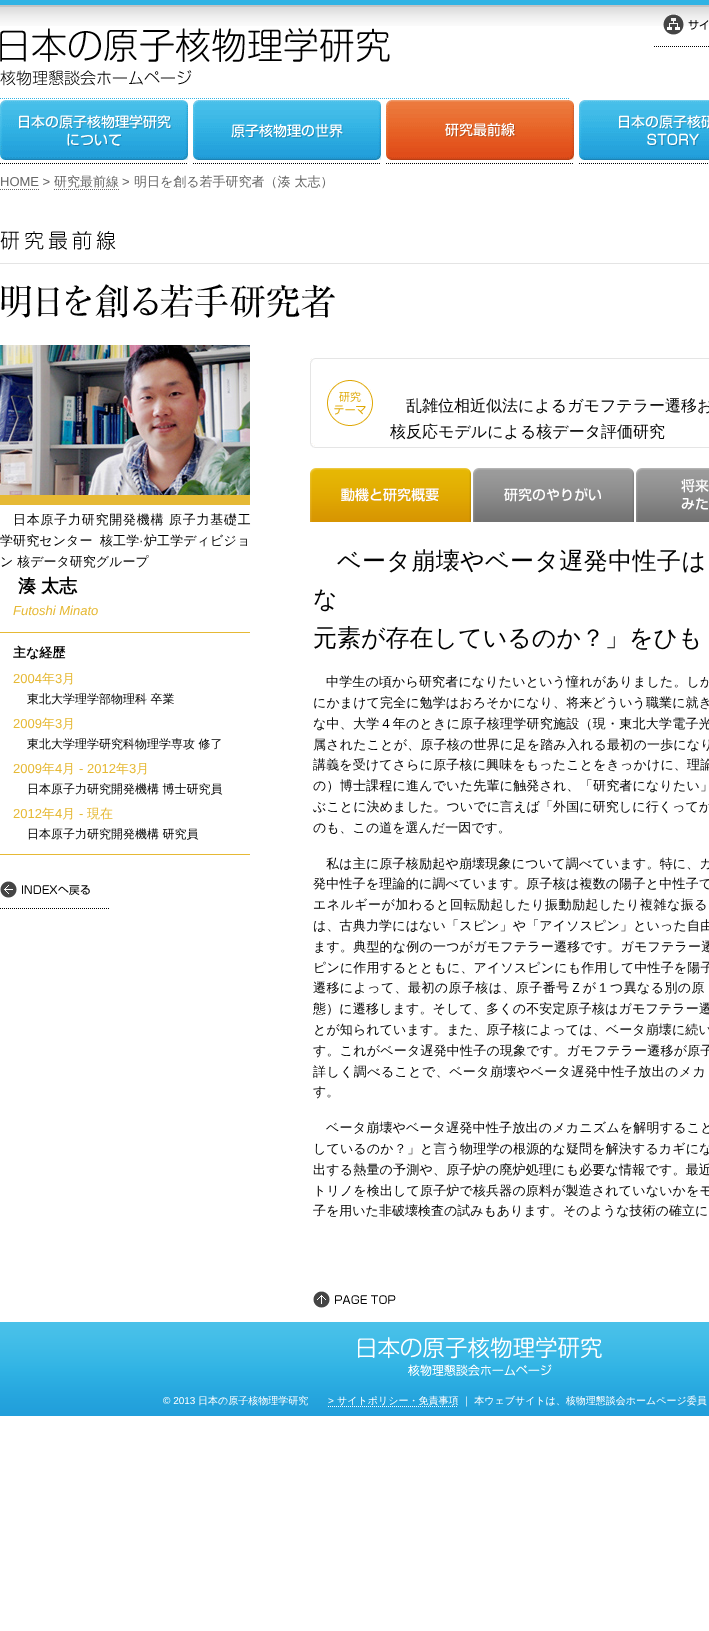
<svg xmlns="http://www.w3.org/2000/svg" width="709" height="1631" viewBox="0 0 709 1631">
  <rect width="100%" height="100%" fill="rgb(255,255,255)"/>
  <image x="0" y="0" width="709" height="26" href="pic1.png"/>
  <image x="0" y="28" width="390" height="58" href="pic2.png"/>
  <path d="M0 98.5H570" fill="none" stroke="rgb(48,179,228)" stroke-dasharray="1 1"/>
  <image x="663" y="14" width="46" height="21" href="pic3.png"/>
  <path d="M654 46.5H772" fill="none" stroke="rgb(0,0,0)" stroke-dasharray="1 1"/>
  <image x="0" y="100" width="188" height="60" href="pic4.png"/>
  <path d="M0 163.5H188" fill="none" stroke="rgb(0,0,0)" stroke-dasharray="1 1"/>
  <image x="193" y="100" width="188" height="60" href="pic5.png"/>
  <path d="M193 163.5H381" fill="none" stroke="rgb(0,0,0)" stroke-dasharray="1 1"/>
  <image x="386" y="100" width="188" height="60" href="pic6.png"/>
  <path d="M386 163.5H574" fill="none" stroke="rgb(0,0,0)" stroke-dasharray="1 1"/>
  <image x="579" y="100" width="130" height="60" href="pic7.png"/>
  <path d="M579 163.5H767" fill="none" stroke="rgb(0,0,0)" stroke-dasharray="1 1"/>
  <text x="0" y="186" font-family="Liberation Sans" font-size="13" fill="rgb(102,102,102)">HOME &gt;</text>
  <path d="M0 189.5H39" fill="none" stroke="rgb(102,102,102)" stroke-dasharray="1 1"/>
  <text x="54" y="186" font-family="WenQuanYi Zen Hei" font-size="13" font-weight="500" fill="rgb(102,102,102)">研究最前線</text>
  <path d="M54 189.5H119" fill="none" stroke="rgb(102,102,102)" stroke-dasharray="1 1"/>
  <text x="122" y="186" font-family="Liberation Sans" font-size="13" fill="rgb(102,102,102)">&gt;</text>
  <text x="134" y="186" font-family="WenQuanYi Zen Hei" font-size="13" font-weight="500" fill="rgb(102,102,102)">明日を創る若手研究者（湊 太志）</text>
  <rect x="0" y="263" width="709" height="1" fill="rgb(228,228,228)"/>
  <image x="0" y="231" width="116" height="19" href="pic8.png"/>
  <image x="1" y="284" width="334" height="34" href="pic9.png"/>
  <rect x="0" y="495" width="250" height="10" fill="rgb(230,185,53)"/>
  <image x="0" y="345" width="250" height="150" href="pic10.png"/>
  <rect x="0" y="632" width="250" height="1" fill="rgb(230,185,53)"/>
  <text x="13" y="524" font-family="WenQuanYi Zen Hei" font-size="13" font-weight="500" letter-spacing="0.75" fill="rgb(0,0,0)">日本原子力研究開発機構 原子力基礎工</text>
  <g font-family="WenQuanYi Zen Hei" font-size="13" font-weight="500" letter-spacing="0.1" fill="rgb(0,0,0)">
    <text x="0" y="545">学研究センター</text>
    <text x="100" y="545">核工学</text>
  </g>
  <text x="139" y="545" font-family="Liberation Sans" font-size="13" letter-spacing="0.1" fill="rgb(0,0,0)">·</text>
  <text x="144" y="545" font-family="WenQuanYi Zen Hei" font-size="13" font-weight="500" letter-spacing="0.1" fill="rgb(0,0,0)">炉工学ディビジョ</text>
  <text x="0" y="566" font-family="WenQuanYi Zen Hei" font-size="13" font-weight="500" fill="rgb(0,0,0)">ン 核データ研究グループ</text>
  <g font-family="WenQuanYi Zen Hei" font-size="18" font-weight="bold" fill="rgb(0,0,0)">
    <text x="18" y="592">湊</text>
    <text x="41" y="592">太志</text>
  </g>
  <text x="13" y="615" font-family="Liberation Sans" font-size="13" font-style="italic" fill="rgb(230,185,53)">Futoshi Minato</text>
  <rect x="0" y="854" width="250" height="1" fill="rgb(230,185,53)"/>
  <text x="13" y="657" font-family="WenQuanYi Zen Hei" font-size="13" font-weight="bold" fill="rgb(0,0,0)">主な経歴</text>
  <text x="13" y="683" font-family="Liberation Sans" font-size="13" fill="rgb(230,185,53)">2004</text>
  <text x="42" y="683" font-family="WenQuanYi Zen Hei" font-size="13" font-weight="500" fill="rgb(230,185,53)">年</text>
  <text x="55" y="683" font-family="Liberation Sans" font-size="13" fill="rgb(230,185,53)">3</text>
  <text x="62" y="683" font-family="WenQuanYi Zen Hei" font-size="13" font-weight="500" fill="rgb(230,185,53)">月</text>
  <text x="27" y="703" font-family="WenQuanYi Zen Hei" font-size="12" font-weight="500" fill="rgb(0,0,0)">東北大学理学部物理科 卒業</text>
  <text x="13" y="728" font-family="Liberation Sans" font-size="13" fill="rgb(230,185,53)">2009</text>
  <text x="42" y="728" font-family="WenQuanYi Zen Hei" font-size="13" font-weight="500" fill="rgb(230,185,53)">年</text>
  <text x="55" y="728" font-family="Liberation Sans" font-size="13" fill="rgb(230,185,53)">3</text>
  <text x="62" y="728" font-family="WenQuanYi Zen Hei" font-size="13" font-weight="500" fill="rgb(230,185,53)">月</text>
  <text x="27" y="748" font-family="WenQuanYi Zen Hei" font-size="12" font-weight="500" fill="rgb(0,0,0)">東北大学理学研究科物理学専攻 修了</text>
  <text x="13" y="773" font-family="Liberation Sans" font-size="13" fill="rgb(230,185,53)">2009</text>
  <text x="42" y="773" font-family="WenQuanYi Zen Hei" font-size="13" font-weight="500" fill="rgb(230,185,53)">年</text>
  <text x="55" y="773" font-family="Liberation Sans" font-size="13" fill="rgb(230,185,53)">4</text>
  <text x="62" y="773" font-family="WenQuanYi Zen Hei" font-size="13" font-weight="500" fill="rgb(230,185,53)">月</text>
  <text x="79" y="773" font-family="Liberation Sans" font-size="13" fill="rgb(230,185,53)">- 2012</text>
  <text x="116" y="773" font-family="WenQuanYi Zen Hei" font-size="13" font-weight="500" fill="rgb(230,185,53)">年</text>
  <text x="129" y="773" font-family="Liberation Sans" font-size="13" fill="rgb(230,185,53)">3</text>
  <text x="136" y="773" font-family="WenQuanYi Zen Hei" font-size="13" font-weight="500" fill="rgb(230,185,53)">月</text>
  <text x="27" y="793" font-family="WenQuanYi Zen Hei" font-size="12" font-weight="500" fill="rgb(0,0,0)">日本原子力研究開発機構 博士研究員</text>
  <text x="13" y="818" font-family="Liberation Sans" font-size="13" fill="rgb(230,185,53)">2012</text>
  <text x="42" y="818" font-family="WenQuanYi Zen Hei" font-size="13" font-weight="500" fill="rgb(230,185,53)">年</text>
  <text x="55" y="818" font-family="Liberation Sans" font-size="13" fill="rgb(230,185,53)">4</text>
  <text x="62" y="818" font-family="WenQuanYi Zen Hei" font-size="13" font-weight="500" fill="rgb(230,185,53)">月</text>
  <text x="79" y="818" font-family="Liberation Sans" font-size="13" fill="rgb(230,185,53)">-</text>
  <text x="87" y="818" font-family="WenQuanYi Zen Hei" font-size="13" font-weight="500" fill="rgb(230,185,53)">現在</text>
  <text x="27" y="838" font-family="WenQuanYi Zen Hei" font-size="12" font-weight="500" fill="rgb(0,0,0)">日本原子力研究開発機構 研究員</text>
  <image x="0" y="881" width="90" height="17" href="pic11.png"/>
  <path d="M0 908.5H110" fill="none" stroke="rgb(0,0,0)" stroke-dasharray="1 1"/>
  <image x="310" y="358" width="399" height="90" href="pic12.png"/>
  <g font-family="WenQuanYi Zen Hei" font-size="16" font-weight="500" fill="rgb(0,0,0)">
    <text x="406" y="411">乱雑位相近似法によるガモフテラー遷移お</text>
    <text x="390" y="437">核反応モデルによる核データ評価研究</text>
  </g>
  <image x="310" y="468" width="161" height="54" href="pic13.png"/>
  <image x="473" y="468" width="161" height="54" href="pic14.png"/>
  <image x="636" y="468" width="73" height="54" href="pic15.png"/>
  <text x="337" y="569" font-family="WenQuanYi Zen Hei" font-size="24" font-weight="500" letter-spacing="0.4" fill="rgb(0,0,0)">ベータ崩壊やベータ遅発中性子は</text>
  <g font-family="WenQuanYi Zen Hei" font-size="24" font-weight="500" fill="rgb(0,0,0)">
    <text>
      <tspan x="313" y="607">な</tspan>
      <tspan x="313" y="646">元素が存在しているのか？」をひも</tspan>
    </text>
  </g>
  <text x="326" y="686" font-family="WenQuanYi Zen Hei" font-size="13" font-weight="500" letter-spacing="0.15" fill="rgb(0,0,0)">中学生の頃から研究者になりたいという憧れがありました。しか</text>
  <text x="313" y="707" font-family="WenQuanYi Zen Hei" font-size="13" font-weight="500" letter-spacing="0.1" fill="rgb(0,0,0)">にかまけて完全に勉学はおろそかになり、将来どういう職業に就き</text>
  <text x="313" y="728" font-family="WenQuanYi Zen Hei" font-size="13" font-weight="500" letter-spacing="0.25" fill="rgb(0,0,0)">な中、大学４年のときに原子核理学研究施設（現・東北大学電子光</text>
  <text x="313" y="749" font-family="WenQuanYi Zen Hei" font-size="13" font-weight="500" letter-spacing="0.2" fill="rgb(0,0,0)">属されたことが、原子核の世界に足を踏み入れる最初の一歩になり</text>
  <text x="313" y="769" font-family="WenQuanYi Zen Hei" font-size="13" font-weight="500" letter-spacing="0.15" fill="rgb(0,0,0)">講義を受けてさらに原子核に興味をもったことをきっかけに、理論</text>
  <text x="313" y="790" font-family="WenQuanYi Zen Hei" font-size="13" font-weight="500" letter-spacing="0.2" fill="rgb(0,0,0)">の）博士課程に進んでいた先輩に触発され、「研究者になりたい」</text>
  <text x="313" y="811" font-family="WenQuanYi Zen Hei" font-size="13" font-weight="500" letter-spacing="0.1" fill="rgb(0,0,0)">ぶことに決めました。ついでに言えば「外国に研究しに行くってか</text>
  <text x="313" y="832" font-family="WenQuanYi Zen Hei" font-size="13" font-weight="500" fill="rgb(0,0,0)">のも、この道を選んだ一因です。</text>
  <g font-family="WenQuanYi Zen Hei" font-size="13" font-weight="500" letter-spacing="0.2" fill="rgb(0,0,0)">
    <text x="326" y="868">私は主に原子核励起や崩壊現象について調べています。特に、ガ</text>
    <text x="313" y="888">発中性子を理論的に調べています。原子核は複数の陽子と中性子で</text>
  </g>
  <text x="313" y="909" font-family="WenQuanYi Zen Hei" font-size="13" font-weight="500" letter-spacing="0.45" fill="rgb(0,0,0)">エネルギーが加わると回転励起したり振動励起したり複雑な振る</text>
  <text x="313" y="930" font-family="WenQuanYi Zen Hei" font-size="13" font-weight="500" letter-spacing="0.15" fill="rgb(0,0,0)">は、古典力学にはない「スピン」や「アイソスピン」といった自由</text>
  <text x="313" y="951" font-family="WenQuanYi Zen Hei" font-size="13" font-weight="500" letter-spacing="0.2" fill="rgb(0,0,0)">ます。典型的な例の一つがガモフテラー遷移です。ガモフテラー遷</text>
  <text x="313" y="972" font-family="WenQuanYi Zen Hei" font-size="13" font-weight="500" letter-spacing="0.15" fill="rgb(0,0,0)">ピンに作用するとともに、アイソスピンにも作用して中性子を陽子</text>
  <text x="313" y="992" font-family="WenQuanYi Zen Hei" font-size="13" font-weight="500" letter-spacing="0.4" fill="rgb(0,0,0)">遷移によって、最初の原子核は、原子番号Ｚが１つ異なる別の原</text>
  <text x="313" y="1013" font-family="WenQuanYi Zen Hei" font-size="13" font-weight="500" letter-spacing="0.15" fill="rgb(0,0,0)">態）に遷移します。そして、多くの不安定原子核はガモフテラー遷</text>
  <text x="313" y="1034" font-family="WenQuanYi Zen Hei" font-size="13" font-weight="500" letter-spacing="0.1" fill="rgb(0,0,0)">とが知られています。また、原子核によっては、ベータ崩壊に続い</text>
  <text x="313" y="1055" font-family="WenQuanYi Zen Hei" font-size="13" font-weight="500" letter-spacing="0.2" fill="rgb(0,0,0)">す。これがベータ遅発中性子の現象です。ガモフテラー遷移が原子</text>
  <text x="313" y="1076" font-family="WenQuanYi Zen Hei" font-size="13" font-weight="500" letter-spacing="0.4" fill="rgb(0,0,0)">詳しく調べることで、ベータ崩壊やベータ遅発中性子放出のメカ</text>
  <text x="313" y="1096" font-family="WenQuanYi Zen Hei" font-size="13" font-weight="500" fill="rgb(0,0,0)">す。</text>
  <text x="326" y="1132" font-family="WenQuanYi Zen Hei" font-size="13" font-weight="500" letter-spacing="0.2" fill="rgb(0,0,0)">ベータ崩壊やベータ遅発中性子放出のメカニズムを解明すること</text>
  <text x="313" y="1153" font-family="WenQuanYi Zen Hei" font-size="13" font-weight="500" letter-spacing="0.15" fill="rgb(0,0,0)">しているのか？」と言う物理学の根源的な疑問を解決するカギにな</text>
  <text x="313" y="1174" font-family="WenQuanYi Zen Hei" font-size="13" font-weight="500" letter-spacing="0.2" fill="rgb(0,0,0)">出する熱量の予測や、原子炉の廃炉処理にも必要な情報です。最近</text>
  <text x="313" y="1195" font-family="WenQuanYi Zen Hei" font-size="13" font-weight="500" letter-spacing="0.15" fill="rgb(0,0,0)">トリノを検出して原子炉で核兵器の原料が製造されていないかをモ</text>
  <text x="313" y="1215" font-family="WenQuanYi Zen Hei" font-size="13" font-weight="500" fill="rgb(0,0,0)">子を用いた非破壊検査の試みもあります。そのような技術の確立に</text>
  <image x="313" y="1291" width="83" height="17" href="pic16.png"/>
  <image x="0" y="1322" width="709" height="94" href="pic17.png"/>
  <image x="358" y="1337" width="244" height="39" href="pic18.png"/>
  <text x="163" y="1404" font-family="Liberation Sans" font-size="10" fill="rgb(255,255,255)">© 2013</text>
  <text x="198" y="1404" font-family="WenQuanYi Zen Hei" font-size="10" font-weight="500" fill="rgb(255,255,255)">日本の原子核物理学研究</text>
  <text x="328" y="1404" font-family="Liberation Sans" font-size="10" fill="rgb(255,255,255)">&gt;</text>
  <path d="M328 1406.5H458" fill="none" stroke="rgb(255,255,255)" stroke-dasharray="1 1"/>
  <text x="337" y="1404" font-family="WenQuanYi Zen Hei" font-size="10" font-weight="500" fill="rgb(255,255,255)">サイトポリシー・免責事項 ｜ 本ウェブサイトは、核物理懇談会ホームページ委員</text>
</svg>
